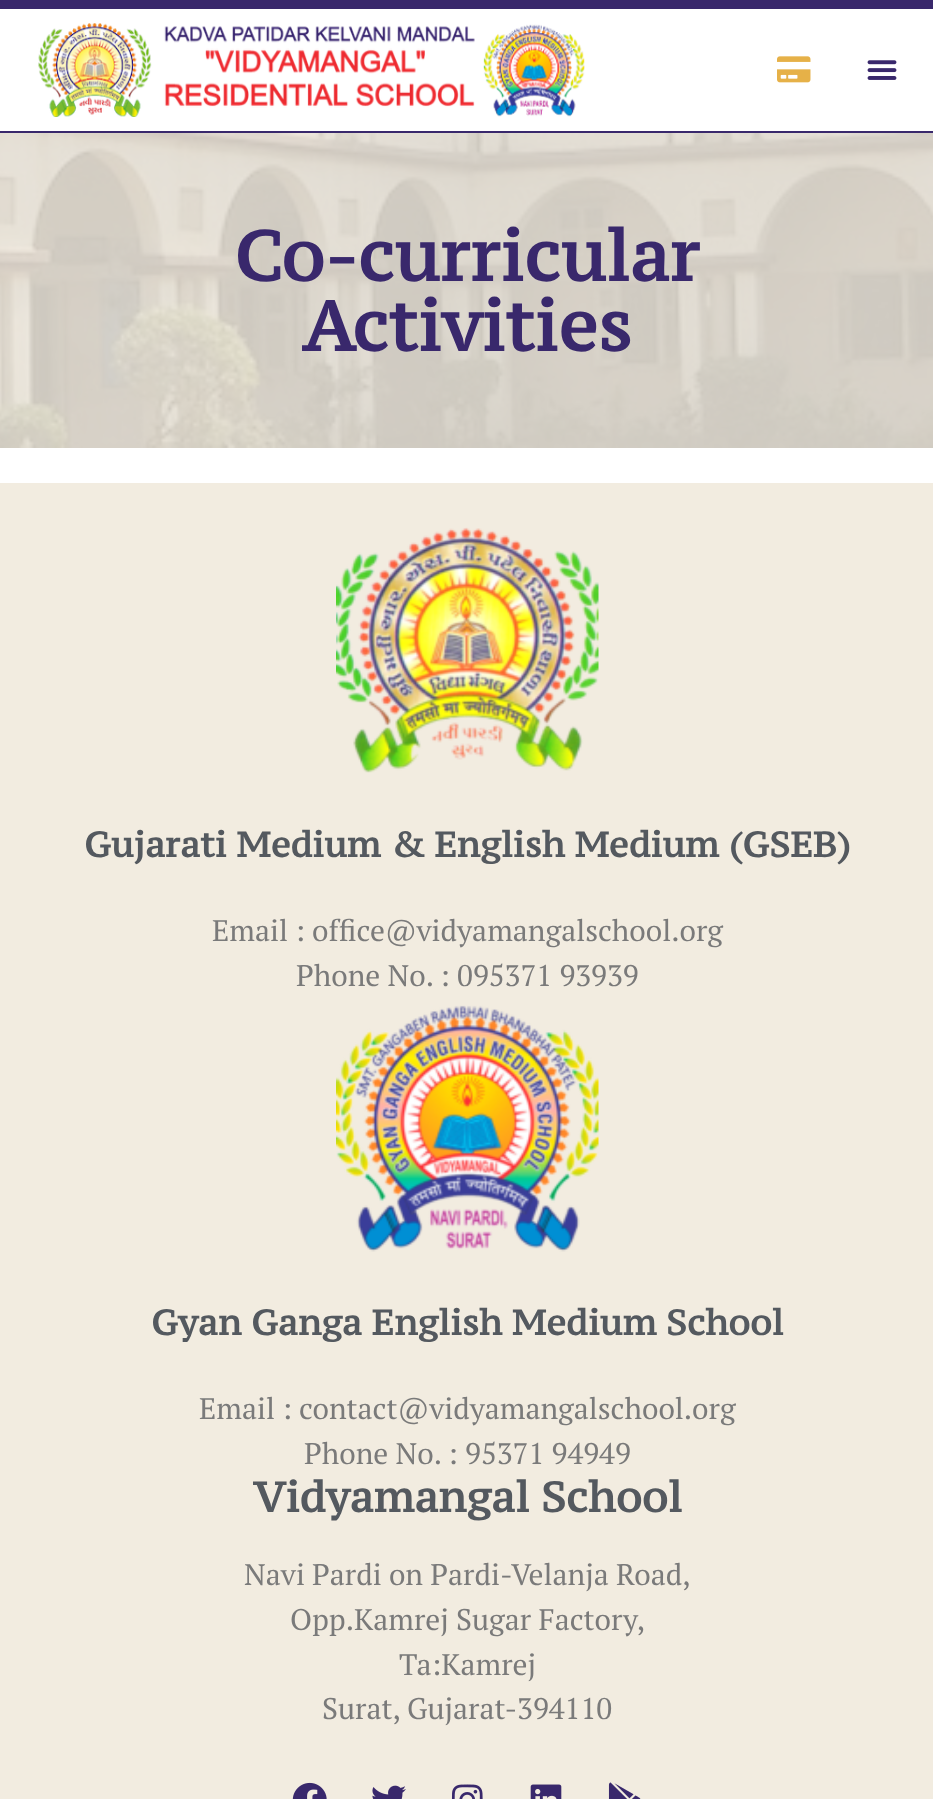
<svg xmlns="http://www.w3.org/2000/svg" width="933" height="1799" viewBox="0 0 933 1799">
  <rect width="100%" height="100%" fill="rgb(255,255,255)"/>
  <rect x="0" y="0" width="933" height="9" fill="rgb(57,40,108)"/>
  <rect x="0" y="131" width="933" height="2" fill="rgb(57,40,108)"/>
  <image x="38" y="23" width="547" height="94" href="pic1.png"/>
  <image x="777" y="56" width="34" height="27" href="pic2.png"/>
  <image x="867" y="60" width="30" height="20" href="pic3.png"/>
  <image x="0" y="133" width="933" height="315" href="pic4.png"/>
  <g font-family="PT Serif Caption" font-size="70" font-weight="bold" fill="rgb(57,40,108)">
    <text x="234" y="281">Co-curricular</text>
    <text x="302" y="351">Activities</text>
  </g>
  <rect x="0" y="483" width="933" height="1316" fill="rgb(242,236,224)"/>
  <image x="336" y="527" width="263" height="246" href="pic5.png"/>
  <text x="84" y="857" font-family="PT Serif Caption" font-size="35" font-weight="bold" fill="rgb(84,89,95)">Gujarati Medium &amp; English Medium (GSEB)</text>
  <g font-family="PT Serif" font-size="29.75" fill="rgb(122,122,122)">
    <text x="212" y="941">Email : office@vidyamangalschool.org</text>
    <text x="296" y="986">Phone No. : 095371 93939</text>
  </g>
  <image x="336" y="1005" width="263" height="247" href="pic6.png"/>
  <text x="151" y="1335" font-family="PT Serif Caption" font-size="35" font-weight="bold" fill="rgb(84,89,95)">Gyan Ganga English Medium School</text>
  <g font-family="PT Serif" font-size="29.75" fill="rgb(122,122,122)">
    <text x="199" y="1419">Email : contact@vidyamangalschool.org</text>
    <text x="304" y="1464">Phone No. : 95371 94949</text>
  </g>
  <text x="253" y="1512" font-family="PT Serif Caption" font-size="42" font-weight="bold" fill="rgb(84,89,95)">Vidyamangal School</text>
  <g font-family="PT Serif" font-size="29.75" fill="rgb(122,122,122)">
    <text x="244" y="1585">Navi Pardi on Pardi-Velanja Road,</text>
    <text x="290" y="1630">Opp.Kamrej Sugar Factory,</text>
    <text x="399" y="1675">Ta:Kamrej</text>
    <text x="322" y="1719">Surat, Gujarat-394110</text>
  </g>
  <image x="292" y="1782" width="35" height="17" href="pic7.png"/>
  <image x="372" y="1785" width="34" height="14" href="pic8.png"/>
  <image x="451" y="1784" width="32" height="15" href="pic9.png"/>
  <image x="530" y="1784" width="32" height="15" href="pic10.png"/>
  <image x="608" y="1782" width="33" height="17" href="pic11.png"/>
</svg>
